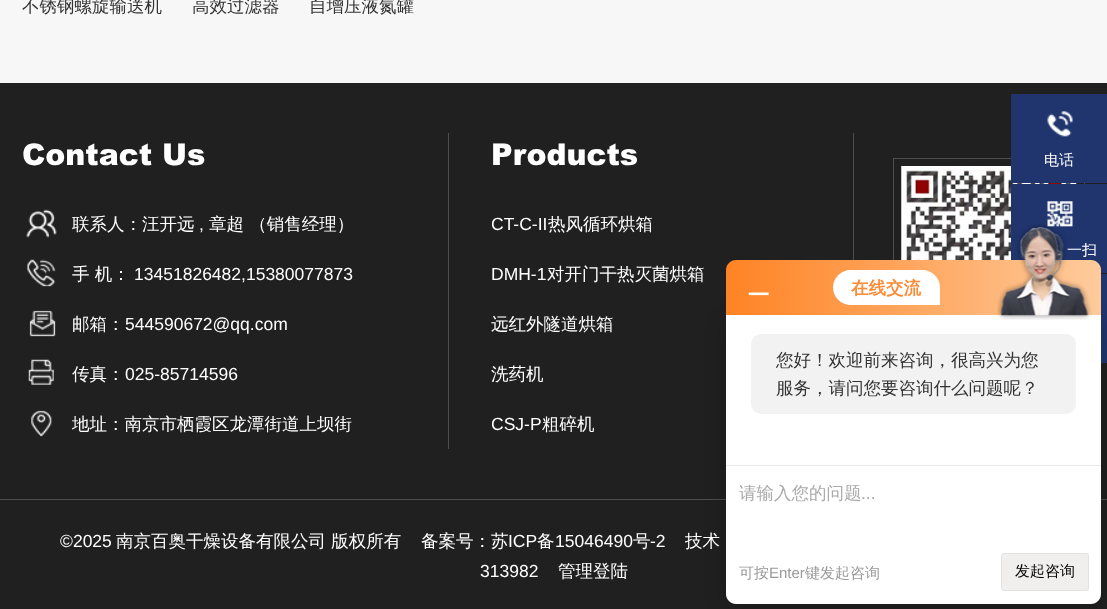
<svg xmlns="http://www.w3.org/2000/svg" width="1107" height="609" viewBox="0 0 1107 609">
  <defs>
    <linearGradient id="g1" gradientUnits="userSpaceOnUse" x1="726" y1="288" x2="1101" y2="288"><stop offset="0" stop-color="rgb(255,131,36)"/><stop offset="1" stop-color="rgb(254,203,156)"/></linearGradient>
  </defs>
  <rect width="100%" height="100%" fill="rgb(247,247,247)"/>
  <g font-family="WenQuanYi Zen Hei" font-size="17.5" font-weight="500" fill="rgb(51,51,51)">
    <text x="22" y="12">不锈钢螺旋输送机</text>
    <text x="192" y="12">高效过滤器</text>
    <text x="309" y="12">自增压液氮罐</text>
  </g>
  <rect x="0" y="83" width="1107" height="526" fill="rgb(32,32,32)"/>
  <rect x="448" y="133" width="1" height="316" fill="rgb(77,77,77)"/>
  <text x="22" y="165" font-family="Arial" font-size="30" font-weight="900" fill="rgb(255,255,255)">Contact Us</text>
  <image x="26" y="209" width="31" height="29" href="pic1.png"/>
  <text x="72" y="230" font-family="WenQuanYi Zen Hei" font-size="17.5" font-weight="500" fill="rgb(255,255,255)">联系人：汪开远</text>
  <text x="199" y="230" font-family="Liberation Sans" font-size="17.5" fill="rgb(255,255,255)">,</text>
  <text x="209" y="230" font-family="WenQuanYi Zen Hei" font-size="17.5" font-weight="500" fill="rgb(255,255,255)">章超 （销售经理）</text>
  <image x="27" y="259" width="29" height="28" href="pic2.png"/>
  <text x="72" y="280" font-family="WenQuanYi Zen Hei" font-size="17.5" font-weight="500" fill="rgb(255,255,255)">手 机：</text>
  <text x="134" y="280" font-family="Liberation Sans" font-size="17.5" fill="rgb(255,255,255)">13451826482,15380077873</text>
  <image x="29" y="310" width="27" height="27" href="pic3.png"/>
  <text x="72" y="330" font-family="WenQuanYi Zen Hei" font-size="17.5" font-weight="500" fill="rgb(255,255,255)">邮箱：</text>
  <text x="125" y="330" font-family="Liberation Sans" font-size="17.5" fill="rgb(255,255,255)">544590672@qq.com</text>
  <image x="28" y="359" width="26" height="26" href="pic4.png"/>
  <text x="72" y="380" font-family="WenQuanYi Zen Hei" font-size="17.5" font-weight="500" fill="rgb(255,255,255)">传真：</text>
  <text x="125" y="380" font-family="Liberation Sans" font-size="17.5" fill="rgb(255,255,255)">025-85714596</text>
  <image x="31" y="410" width="21" height="27" href="pic5.png"/>
  <text x="72" y="430" font-family="WenQuanYi Zen Hei" font-size="17.5" font-weight="500" fill="rgb(255,255,255)">地址：南京市栖霞区龙潭街道上坝街</text>
  <rect x="853" y="133" width="1" height="127" fill="rgb(77,77,77)"/>
  <text x="491" y="165" font-family="Arial" font-size="30" font-weight="900" fill="rgb(255,255,255)">Products</text>
  <text x="491" y="230" font-family="Liberation Sans" font-size="17.5" fill="rgb(255,255,255)">CT-C-II</text>
  <text x="548" y="230" font-family="WenQuanYi Zen Hei" font-size="17.5" font-weight="500" fill="rgb(255,255,255)">热风循环烘箱</text>
  <text x="491" y="280" font-family="Liberation Sans" font-size="17.5" fill="rgb(255,255,255)">DMH-1</text>
  <g font-family="WenQuanYi Zen Hei" font-size="17.5" font-weight="500" fill="rgb(255,255,255)">
    <text x="547" y="280">对开门干热灭菌烘箱</text>
    <text x="491" y="330">远红外隧道烘箱</text>
    <text x="491" y="380">洗药机</text>
  </g>
  <text x="491" y="430" font-family="Liberation Sans" font-size="17.5" fill="rgb(255,255,255)">CSJ-P</text>
  <text x="542" y="430" font-family="WenQuanYi Zen Hei" font-size="17.5" font-weight="500" fill="rgb(255,255,255)">粗碎机</text>
  <rect x="893.5" y="158.5" width="191" height="191" fill="none" stroke="rgb(77,77,77)"/>
  <image x="901" y="166" width="176" height="94" href="pic6.png"/>
  <rect x="0" y="499" width="1107" height="1" fill="rgb(77,77,77)"/>
  <text x="60" y="547" font-family="Liberation Sans" font-size="17.5" fill="rgb(255,255,255)">©2025</text>
  <g font-family="WenQuanYi Zen Hei" font-size="17.5" font-weight="500" fill="rgb(255,255,255)">
    <text x="116" y="547">南京百奥干燥设备有限公司 版权所有</text>
    <text x="421" y="547">备案号：苏</text>
  </g>
  <text x="508" y="547" font-family="Liberation Sans" font-size="17.5" fill="rgb(255,255,255)">ICP</text>
  <text x="537" y="547" font-family="WenQuanYi Zen Hei" font-size="17.5" font-weight="500" fill="rgb(255,255,255)">备</text>
  <text x="555" y="547" font-family="Liberation Sans" font-size="17.5" fill="rgb(255,255,255)">15046490</text>
  <text x="633" y="547" font-family="WenQuanYi Zen Hei" font-size="17.5" font-weight="500" fill="rgb(255,255,255)">号</text>
  <text x="650" y="547" font-family="Liberation Sans" font-size="17.5" fill="rgb(255,255,255)">-2</text>
  <text x="685" y="547" font-family="WenQuanYi Zen Hei" font-size="17.5" font-weight="500" fill="rgb(255,255,255)">技术</text>
  <text x="480" y="577" font-family="Liberation Sans" font-size="17.5" fill="rgb(255,255,255)">313982</text>
  <text x="558" y="577" font-family="WenQuanYi Zen Hei" font-size="17.5" font-weight="500" fill="rgb(255,255,255)">管理登陆</text>
  <rect x="1011" y="94" width="96" height="89" fill="rgb(32,53,110)"/>
  <image x="1047" y="111" width="26" height="26" href="pic7.png"/>
  <text x="1044" y="165" font-family="WenQuanYi Zen Hei" font-size="15" font-weight="500" fill="rgb(255,255,255)">电话</text>
  <rect x="1011" y="184" width="96" height="89" fill="rgb(32,53,110)"/>
  <image x="1047" y="201" width="26" height="26" href="pic8.png"/>
  <text x="1067" y="255" font-family="WenQuanYi Zen Hei" font-size="15" font-weight="500" fill="rgb(255,255,255)">一扫</text>
  <rect x="1101" y="274" width="6" height="89" fill="rgb(32,53,110)"/>
  <rect x="726" y="320" width="375" height="289" rx="10" fill="rgba(0,0,0,0.2)" filter="blur(10px)"/>
  <path d="M736 260H1091C1096.5 260 1101 264.5 1101 270V315H726V270C726 264.5 730.5 260 736 260Z" fill="url(#g1)"/>
  <image x="748" y="292" width="21" height="4" href="pic9.png"/>
  <path d="M850.5 270H922.5C932 270 940 278 940 287.5V305H850.5C841 305 833 297 833 287.5C833 278 841 270 850.5 270Z" fill="rgb(255,255,255)"/>
  <text x="851" y="294" font-family="WenQuanYi Zen Hei" font-size="17.5" font-weight="bold" fill="rgb(251,139,54)">在线交流</text>
  <path d="M726 315H1101V594C1101 599.5 1096.5 604 1091 604H736C730.5 604 726 599.5 726 594Z" fill="rgb(255,255,255)"/>
  <image x="997" y="224" width="95" height="96" href="pic10.png"/>
  <rect x="751" y="334" width="325" height="80" rx="10" fill="rgb(242,242,242)"/>
  <g font-family="WenQuanYi Zen Hei" font-size="17.5" font-weight="500" fill="rgb(51,51,51)">
    <text>
      <tspan x="776" y="366">您好！欢迎前来咨询，很高兴为您</tspan>
      <tspan x="776" y="394">服务，请问您要咨询什么问题呢？</tspan>
    </text>
  </g>
  <rect x="726" y="465" width="375" height="1" fill="rgb(234,234,234)"/>
  <text x="739" y="499" font-family="WenQuanYi Zen Hei" font-size="17.5" font-weight="500" fill="rgb(170,170,170)">请输入您的问题</text>
  <text x="861" y="499" font-family="Liberation Sans" font-size="17.5" fill="rgb(170,170,170)">...</text>
  <text x="739" y="578" font-family="WenQuanYi Zen Hei" font-size="15" font-weight="500" fill="rgb(153,153,153)">可按</text>
  <text x="769" y="578" font-family="Liberation Sans" font-size="15" fill="rgb(153,153,153)">Enter</text>
  <text x="805" y="578" font-family="WenQuanYi Zen Hei" font-size="15" font-weight="500" fill="rgb(153,153,153)">键发起咨询</text>
  <rect x="1001.5" y="553.5" width="87" height="37" rx="2" fill="rgb(240,239,237)" stroke="rgb(226,226,226)"/>
  <text x="1015" y="576" font-family="WenQuanYi Zen Hei" font-size="15" font-weight="500" fill="rgb(0,0,0)">发起咨询</text>
</svg>
